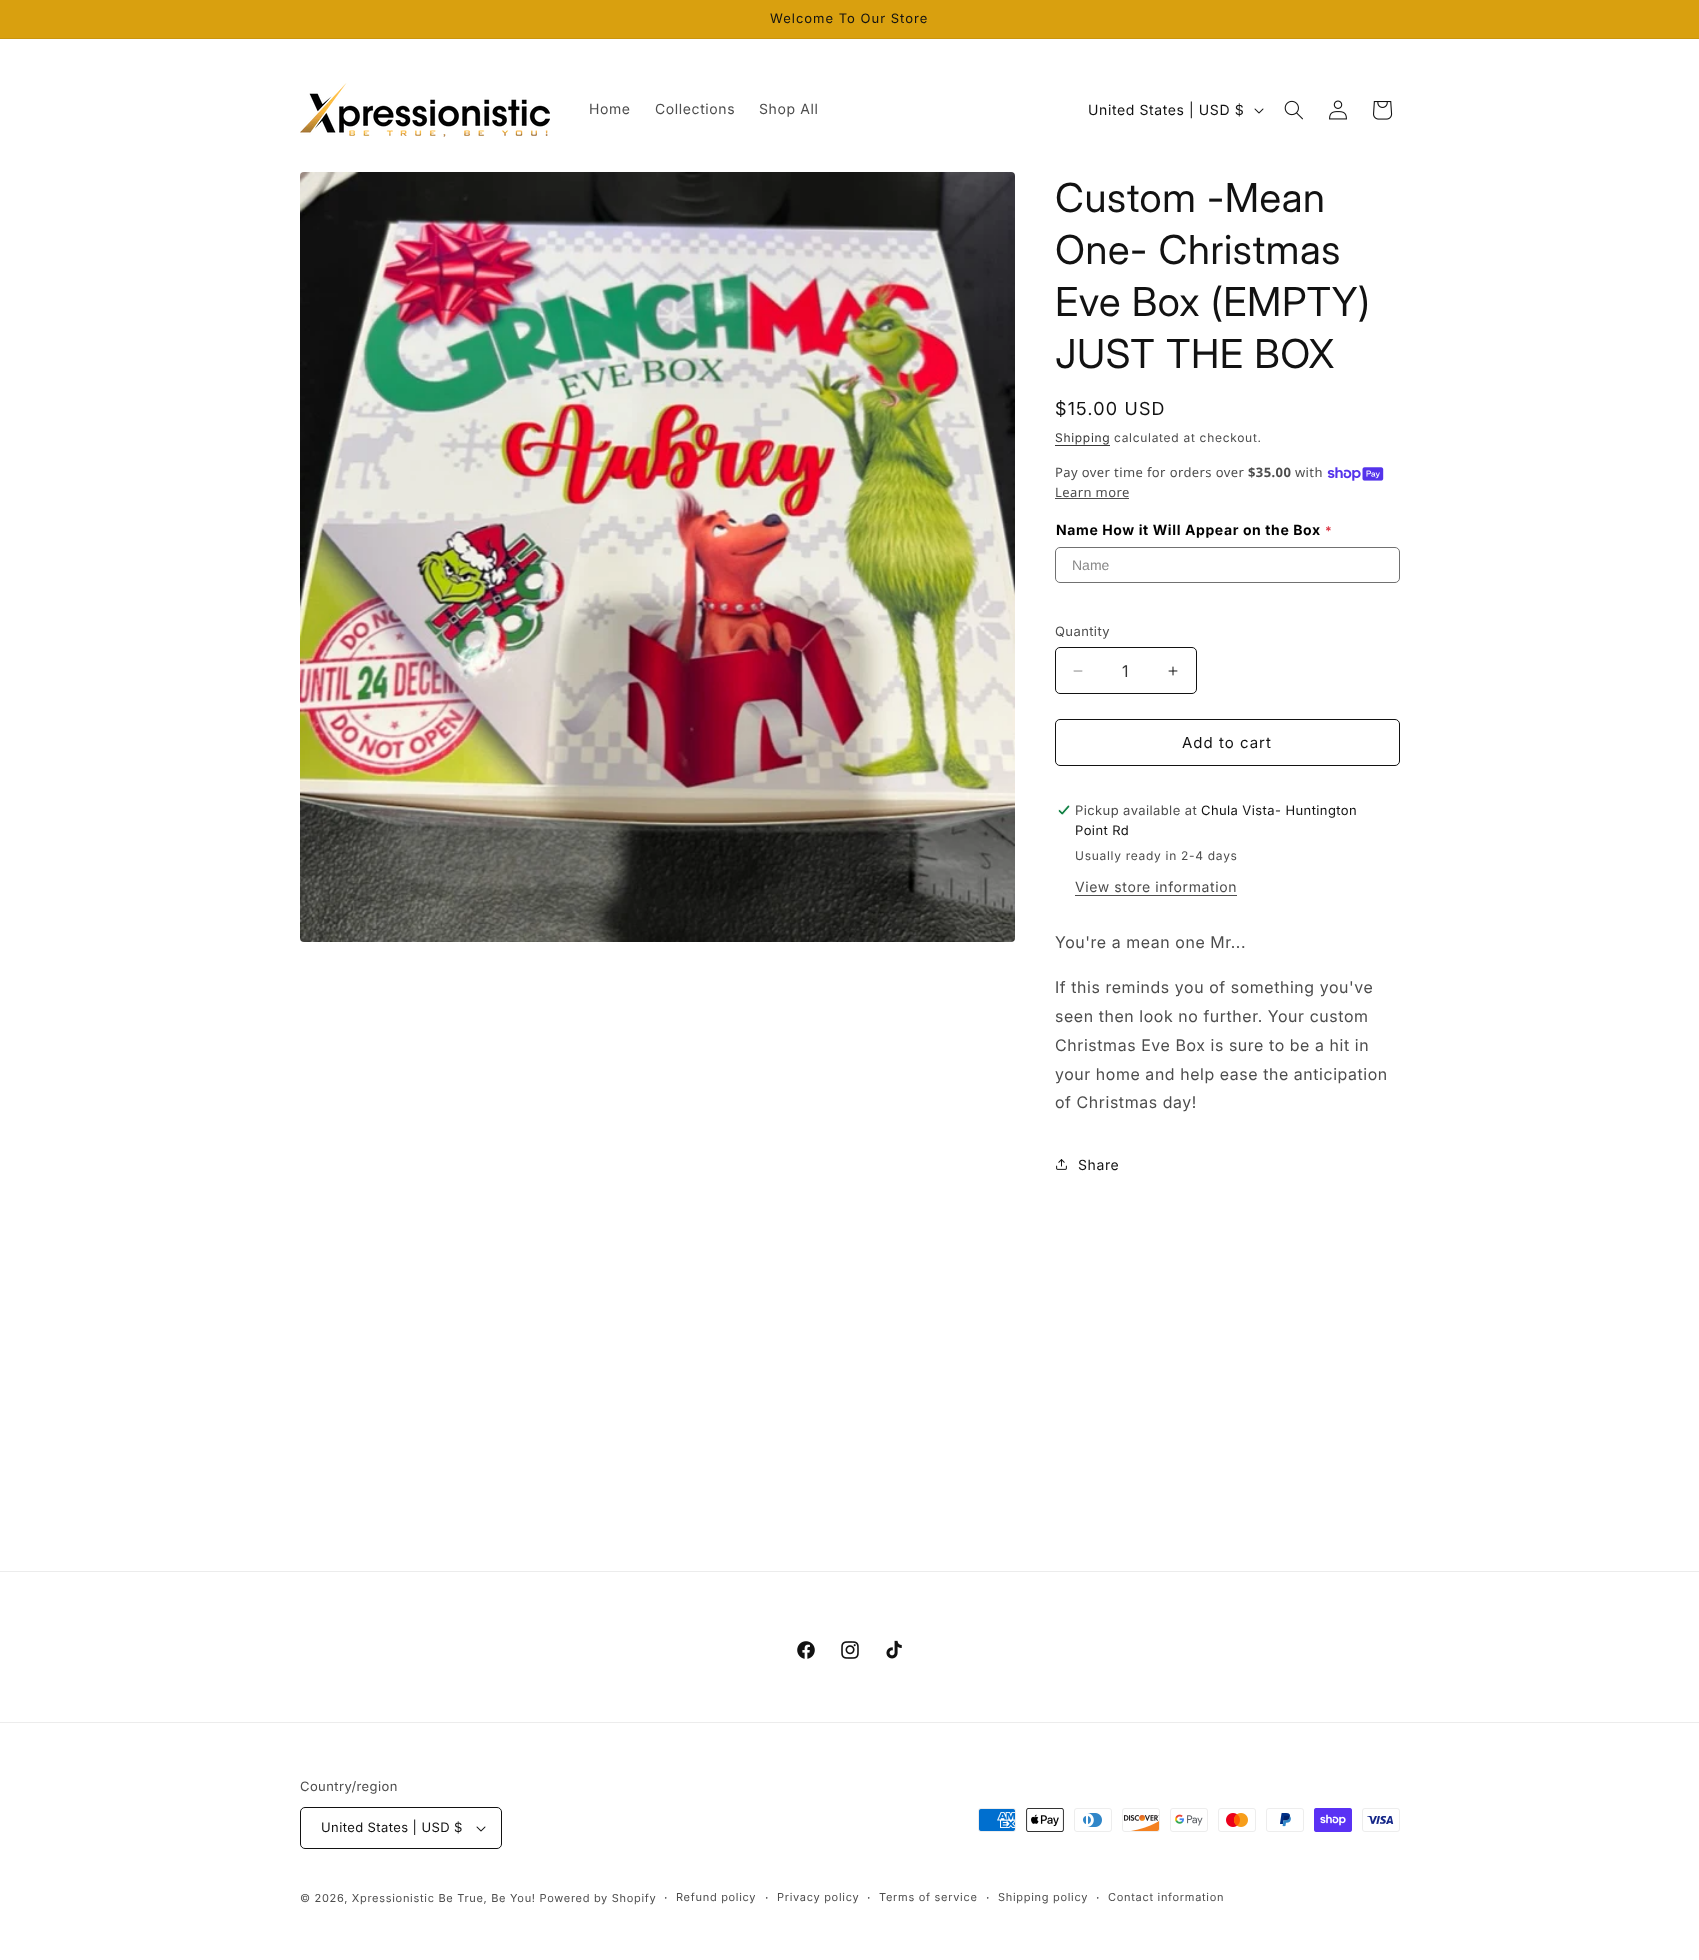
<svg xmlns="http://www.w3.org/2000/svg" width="1699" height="1960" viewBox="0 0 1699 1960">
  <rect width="100%" height="100%" fill="rgb(255,255,255)"/>
  <rect x="0" y="0" width="1699" height="38" fill="rgb(217,160,15)"/>
  <rect x="0" y="38" width="1699" height="1" fill="rgb(201,149,15)"/>
  <text x="770" y="23" font-family="'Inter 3'" font-size="13" letter-spacing="1" fill="rgb(18,18,18)">Welcome To Our Store</text>
  <image x="300" y="83" width="250" height="54" href="pic1.png"/>
  <g font-family="'Inter 3'" font-size="14" letter-spacing="0.6" fill="rgb(77,77,77)">
    <text x="589" y="114">Home</text>
    <text x="655" y="114">Collections</text>
    <text x="759" y="114">Shop All</text>
  </g>
  <text x="1088" y="115" font-family="'Inter 3'" font-size="14" letter-spacing="0.6" fill="rgb(18,18,18)">United States | USD $</text>
  <image x="1254" y="108" width="10" height="6" href="pic2.png"/>
  <image x="1284" y="100" width="19" height="20" href="pic3.png"/>
  <image x="1329" y="100" width="18" height="20" href="pic4.png"/>
  <image x="1373" y="101" width="20" height="19" href="pic5.png"/>
  <image x="300" y="172" width="715" height="770" href="pic6.png"/>
  <g font-family="Inter" font-size="40" letter-spacing="0.6" fill="rgb(18,18,18)">
    <text>
      <tspan x="1055" y="212">Custom -Mean</tspan>
      <tspan x="1055" y="264">One- Christmas</tspan>
      <tspan x="1055" y="316">Eve Box (EMPTY)</tspan>
      <tspan x="1055" y="368">JUST THE BOX</tspan>
    </text>
  </g>
  <text x="1055" y="415" font-family="'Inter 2'" font-size="18" letter-spacing="1.25" fill="rgb(18,18,18)">$15.00 USD</text>
  <text x="1055" y="442" font-family="'Inter 3'" font-size="12" letter-spacing="0.7" fill="rgb(54,54,54)">Shipping</text>
  <rect x="1055" y="445" width="55" height="1" fill="rgb(54,54,54)"/>
  <text x="1114" y="442" font-family="'Inter 3'" font-size="12" letter-spacing="0.7" fill="rgb(77,77,77)">calculated at checkout.</text>
  <text x="1055" y="477" font-family="Noto Sans" font-size="13" letter-spacing="0.4" fill="rgb(77,77,77)">Pay over time for orders over</text>
  <text x="1248" y="477" font-family="Noto Sans" font-size="13" font-weight="bold" letter-spacing="0.4" fill="rgb(77,77,77)">$35.00</text>
  <text x="1295" y="477" font-family="Noto Sans" font-size="13" letter-spacing="0.4" fill="rgb(77,77,77)">with</text>
  <image x="1327" y="467" width="57" height="14" href="pic7.png"/>
  <text x="1055" y="497" font-family="Noto Sans" font-size="13" letter-spacing="0.4" fill="rgb(77,77,77)">Learn more</text>
  <rect x="1055" y="498" width="74" height="1" fill="rgb(77,77,77)"/>
  <text x="1056" y="535" font-family="Inter" font-size="14" font-weight="bold" letter-spacing="0.6" fill="rgb(0,0,0)">Name How it Will Appear on the Box</text>
  <text x="1325" y="535" font-family="Inter" font-size="12" font-weight="bold" letter-spacing="0.6" fill="rgb(220,53,69)">*</text>
  <rect x="1055.5" y="547.5" width="344" height="35" rx="4.5" fill="none" stroke="rgb(113,113,113)"/>
  <text x="1072" y="570" font-family="Liberation Sans" font-size="14" fill="rgb(136,136,136)">Name</text>
  <text x="1055" y="636" font-family="'Inter 3'" font-size="13" letter-spacing="0.4" fill="rgb(77,77,77)">Quantity</text>
  <image x="1073" y="670" width="10" height="2" href="pic8.png"/>
  <image x="1168" y="666" width="10" height="10" href="pic9.png"/>
  <rect x="1055.5" y="647.5" width="141" height="46" rx="4.5" fill="none" stroke="rgb(18,18,18)"/>
  <text x="1122" y="677" font-family="'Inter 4'" font-size="16" fill="rgb(54,54,54)">1</text>
  <rect x="1055.5" y="719.5" width="344" height="46" rx="4.5" fill="none" stroke="rgb(18,18,18)"/>
  <text x="1182" y="748" font-family="'Inter 3'" font-size="15" letter-spacing="1" fill="rgb(18,18,18)">Add to cart</text>
  <image x="1058" y="805" width="12" height="10" href="pic10.png"/>
  <text x="1075" y="815" font-family="'Inter 3'" font-size="13" letter-spacing="0.4" fill="rgb(77,77,77)">Pickup available at</text>
  <g font-family="'Inter 3'" font-size="13" letter-spacing="0.4" fill="rgb(18,18,18)">
    <text x="1201" y="815">Chula Vista- Huntington</text>
    <text x="1075" y="835">Point Rd</text>
  </g>
  <text x="1075" y="860" font-family="'Inter 3'" font-size="12" letter-spacing="0.7" fill="rgb(77,77,77)">Usually ready in 2-4 days</text>
  <text x="1075" y="892" font-family="'Inter 3'" font-size="14" letter-spacing="0.6" fill="rgb(77,77,77)">View store information</text>
  <rect x="1075" y="895" width="162" height="1" fill="rgb(77,77,77)"/>
  <g font-family="'Inter 4'" font-size="16" letter-spacing="0.6" fill="rgb(77,77,77)">
    <text x="1055" y="948">You're a mean one Mr...</text>
    <text>
      <tspan x="1055" y="993">If this reminds you of something you've</tspan>
      <tspan x="1055" y="1022">seen then look no further. Your custom</tspan>
      <tspan x="1055" y="1051">Christmas Eve Box is sure to be a hit in</tspan>
      <tspan x="1055" y="1080">your home and help ease the anticipation</tspan>
      <tspan x="1055" y="1108">of Christmas day!</tspan>
    </text>
  </g>
  <image x="1056" y="1159" width="11" height="11" href="pic11.png"/>
  <text x="1078" y="1170" font-family="'Inter 3'" font-size="14" letter-spacing="0.6" fill="rgb(18,18,18)">Share</text>
  <rect x="0" y="1571" width="1699" height="1" fill="rgb(236,236,236)"/>
  <image x="797" y="1641" width="18" height="18" href="pic12.png"/>
  <image x="841" y="1641" width="18" height="18" href="pic13.png"/>
  <image x="886" y="1640" width="16" height="19" href="pic14.png"/>
  <rect x="0" y="1722" width="1699" height="1" fill="rgb(236,236,236)"/>
  <text x="300" y="1791" font-family="'Inter 3'" font-size="13" letter-spacing="0.4" fill="rgb(77,77,77)">Country/region</text>
  <image x="476" y="1826" width="10" height="6" href="pic2.png"/>
  <rect x="300.5" y="1807.5" width="201" height="41" rx="4.5" fill="none" stroke="rgb(18,18,18)"/>
  <text x="321" y="1832" font-family="'Inter 3'" font-size="13" letter-spacing="0.4" fill="rgb(18,18,18)">United States | USD $</text>
  <image x="978" y="1808" width="38" height="24" href="pic15.png"/>
  <image x="1026" y="1808" width="38" height="24" href="pic16.png"/>
  <image x="1074" y="1808" width="38" height="24" href="pic17.png"/>
  <image x="1122" y="1808" width="38" height="24" href="pic18.png"/>
  <image x="1170" y="1808" width="38" height="24" href="pic19.png"/>
  <image x="1218" y="1808" width="38" height="24" href="pic20.png"/>
  <image x="1266" y="1808" width="38" height="24" href="pic21.png"/>
  <image x="1314" y="1808" width="38" height="24" href="pic22.png"/>
  <image x="1362" y="1808" width="38" height="24" href="pic23.png"/>
  <text x="300" y="1902" font-family="'Inter 3'" font-size="11" letter-spacing="0.7" fill="rgb(77,77,77)">© 2026, Xpressionistic Be True, Be You! Powered by Shopify</text>
  <text x="664" y="1902" font-family="'Inter 3'" font-size="12" letter-spacing="0.7" fill="rgb(77,77,77)">·</text>
  <text x="676" y="1901" font-family="'Inter 3'" font-size="11" letter-spacing="0.7" fill="rgb(77,77,77)">Refund policy</text>
  <text x="765" y="1902" font-family="'Inter 3'" font-size="12" letter-spacing="0.7" fill="rgb(77,77,77)">·</text>
  <text x="777" y="1901" font-family="'Inter 3'" font-size="11" letter-spacing="0.7" fill="rgb(77,77,77)">Privacy policy</text>
  <text x="867" y="1902" font-family="'Inter 3'" font-size="12" letter-spacing="0.7" fill="rgb(77,77,77)">·</text>
  <text x="879" y="1901" font-family="'Inter 3'" font-size="11" letter-spacing="0.7" fill="rgb(77,77,77)">Terms of service</text>
  <text x="986" y="1902" font-family="'Inter 3'" font-size="12" letter-spacing="0.7" fill="rgb(77,77,77)">·</text>
  <text x="998" y="1901" font-family="'Inter 3'" font-size="11" letter-spacing="0.7" fill="rgb(77,77,77)">Shipping policy</text>
  <text x="1096" y="1902" font-family="'Inter 3'" font-size="12" letter-spacing="0.7" fill="rgb(77,77,77)">·</text>
  <text x="1108" y="1901" font-family="'Inter 3'" font-size="11" letter-spacing="0.7" fill="rgb(77,77,77)">Contact information</text>
</svg>
